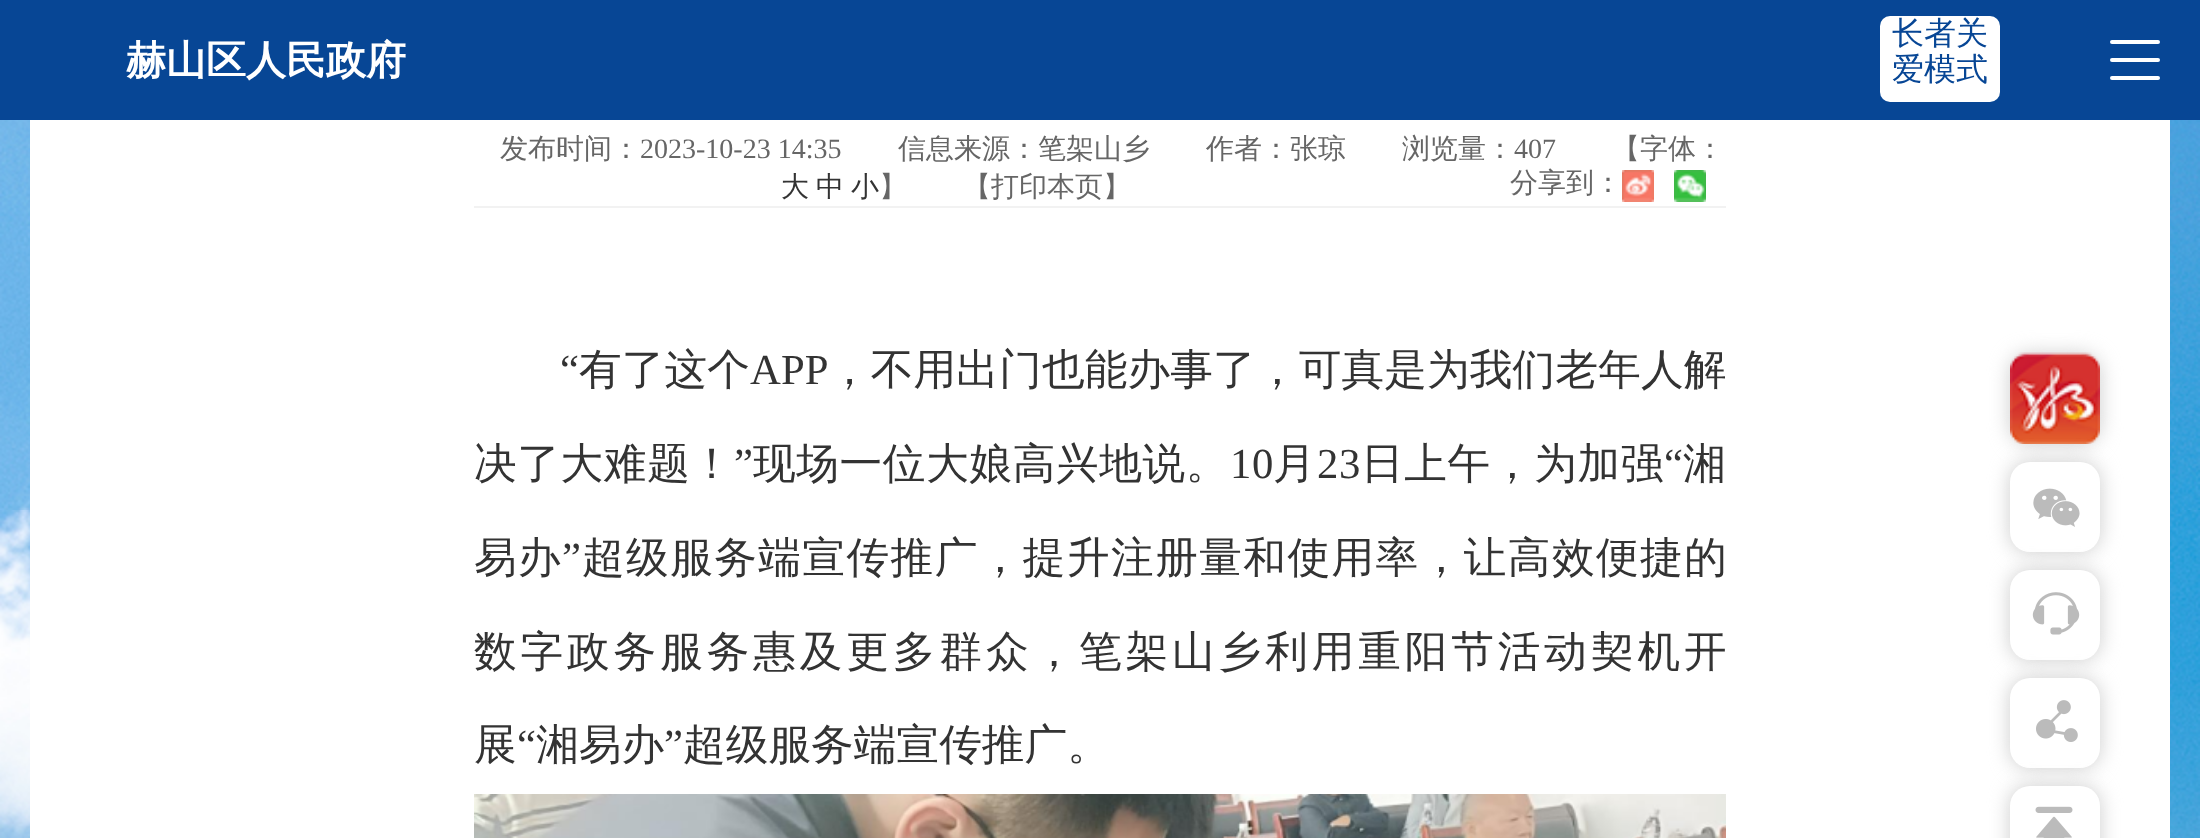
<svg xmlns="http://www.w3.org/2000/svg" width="2200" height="838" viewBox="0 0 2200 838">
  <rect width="100%" height="100%" fill="rgb(255,255,255)"/>
  <image x="0" y="120" width="2200" height="718" href="pic1.png"/>
  <rect x="0" y="0" width="2200" height="120" fill="rgb(7,70,149)"/>
  <text x="126" y="74" font-family="WenQuanYi Zen Hei" font-size="40" font-weight="bold" fill="rgb(255,255,255)">赫山区人民政府</text>
  <rect x="2110" y="58" width="50" height="4" rx="2" fill="rgb(255,255,255)"/>
  <rect x="2110" y="40" width="50" height="4" rx="2" fill="rgb(255,255,255)"/>
  <rect x="2110" y="76" width="50" height="4" rx="2" fill="rgb(255,255,255)"/>
  <rect x="1880" y="16" width="120" height="86" rx="10" fill="rgb(255,255,255)"/>
  <g font-family="WenQuanYi Zen Hei" font-size="32" font-weight="500" fill="rgb(7,70,149)">
    <text>
      <tspan x="1892" y="44">长者关</tspan>
      <tspan x="1892" y="80">爱模式</tspan>
    </text>
  </g>
  <rect x="30" y="120" width="2140" height="718" fill="rgb(255,255,255)"/>
  <rect x="474" y="206" width="1252" height="2" fill="rgb(242,242,242)"/>
  <text x="500" y="158" font-family="WenQuanYi Zen Hei" font-size="28" font-weight="500" fill="rgb(102,102,102)">发布时间：</text>
  <text x="640" y="158" font-family="Liberation Serif" font-size="28" fill="rgb(102,102,102)">2023-10-23 14:35</text>
  <g font-family="WenQuanYi Zen Hei" font-size="28" font-weight="500" fill="rgb(102,102,102)">
    <text x="898" y="158">信息来源：笔架山乡</text>
    <text x="1206" y="158">作者：张琼</text>
    <text x="1402" y="158">浏览量：</text>
  </g>
  <text x="1514" y="158" font-family="Liberation Serif" font-size="28" fill="rgb(102,102,102)">407</text>
  <text x="1612" y="158" font-family="WenQuanYi Zen Hei" font-size="28" font-weight="500" fill="rgb(102,102,102)">【字体：</text>
  <g font-family="WenQuanYi Zen Hei" font-size="28" font-weight="500" fill="rgb(51,51,51)">
    <text x="781" y="196">大</text>
    <text x="816" y="196">中</text>
    <text x="851" y="196">小</text>
  </g>
  <g font-family="WenQuanYi Zen Hei" font-size="28" font-weight="500" fill="rgb(102,102,102)">
    <text x="879" y="196">】</text>
    <text x="963" y="196">【打印本页】</text>
    <text x="1510" y="192">分享到：</text>
  </g>
  <image x="1622" y="170" width="32" height="32" href="pic2.png"/>
  <image x="1674" y="170" width="32" height="32" href="pic3.png"/>
  <text x="560" y="384" font-family="Liberation Serif" font-size="42.7" letter-spacing="0.1" fill="rgb(51,51,51)">“</text>
  <text x="579" y="384" font-family="WenQuanYi Zen Hei" font-size="42.7" font-weight="500" letter-spacing="0.1" fill="rgb(51,51,51)">有了这个</text>
  <text x="750" y="384" font-family="Liberation Serif" font-size="42.7" letter-spacing="0.1" fill="rgb(51,51,51)">APP</text>
  <text x="828" y="384" font-family="WenQuanYi Zen Hei" font-size="42.7" font-weight="500" letter-spacing="0.1" fill="rgb(51,51,51)">，不用出门也能办事了，可真是为我们老年人解</text>
  <text x="474" y="478" font-family="WenQuanYi Zen Hei" font-size="42.7" font-weight="500" letter-spacing="0.6" fill="rgb(51,51,51)">决了大难题！</text>
  <text x="734" y="478" font-family="Liberation Serif" font-size="42.7" letter-spacing="0.6" fill="rgb(51,51,51)">”</text>
  <text x="753" y="478" font-family="WenQuanYi Zen Hei" font-size="42.7" font-weight="500" letter-spacing="0.6" fill="rgb(51,51,51)">现场一位大娘高兴地说。</text>
  <text x="1230" y="478" font-family="Liberation Serif" font-size="42.7" letter-spacing="0.6" fill="rgb(51,51,51)">10</text>
  <text x="1273" y="478" font-family="WenQuanYi Zen Hei" font-size="42.7" font-weight="500" letter-spacing="0.6" fill="rgb(51,51,51)">月</text>
  <text x="1317" y="478" font-family="Liberation Serif" font-size="42.7" letter-spacing="0.6" fill="rgb(51,51,51)">23</text>
  <text x="1361" y="478" font-family="WenQuanYi Zen Hei" font-size="42.7" font-weight="500" letter-spacing="0.6" fill="rgb(51,51,51)">日上午，为加强</text>
  <text x="1664" y="478" font-family="Liberation Serif" font-size="42.7" letter-spacing="0.6" fill="rgb(51,51,51)">“</text>
  <text x="1683" y="478" font-family="WenQuanYi Zen Hei" font-size="42.7" font-weight="500" letter-spacing="0.6" fill="rgb(51,51,51)">湘</text>
  <text x="474" y="572" font-family="WenQuanYi Zen Hei" font-size="42.7" font-weight="500" letter-spacing="1.4" fill="rgb(51,51,51)">易办</text>
  <text x="562" y="572" font-family="Liberation Serif" font-size="42.7" letter-spacing="1.4" fill="rgb(51,51,51)">”</text>
  <text x="582" y="572" font-family="WenQuanYi Zen Hei" font-size="42.7" font-weight="500" letter-spacing="1.4" fill="rgb(51,51,51)">超级服务端宣传推广，提升注册量和使用率，让高效便捷的</text>
  <text x="474" y="666" font-family="WenQuanYi Zen Hei" font-size="42.7" font-weight="500" letter-spacing="3.85" fill="rgb(51,51,51)">数字政务服务惠及更多群众，笔架山乡利用重阳节活动契机开</text>
  <text x="474" y="759" font-family="WenQuanYi Zen Hei" font-size="42.7" font-weight="500" fill="rgb(51,51,51)">展</text>
  <text x="517" y="759" font-family="Liberation Serif" font-size="42.7" fill="rgb(51,51,51)">“</text>
  <text x="536" y="759" font-family="WenQuanYi Zen Hei" font-size="42.7" font-weight="500" fill="rgb(51,51,51)">湘易办</text>
  <text x="664" y="759" font-family="Liberation Serif" font-size="42.7" fill="rgb(51,51,51)">”</text>
  <text x="683" y="759" font-family="WenQuanYi Zen Hei" font-size="42.7" font-weight="500" fill="rgb(51,51,51)">超级服务端宣传推广。</text>
  <image x="474" y="794" width="1252" height="44" href="pic4.png"/>
  <rect x="2010" y="354" width="90" height="90" rx="20" fill="rgb(204,204,204)" filter="blur(10px)"/>
  <rect x="2010" y="354" width="90" height="90" rx="20" fill="rgb(255,255,255)"/>
  <image x="2010" y="352" width="90" height="92" href="pic5.png"/>
  <rect x="2010" y="462" width="90" height="90" rx="20" fill="rgb(204,204,204)" filter="blur(10px)"/>
  <rect x="2010" y="462" width="90" height="90" rx="20" fill="rgb(255,255,255)"/>
  <image x="2033" y="488" width="47" height="39" href="pic6.png"/>
  <rect x="2010" y="570" width="90" height="90" rx="20" fill="rgb(204,204,204)" filter="blur(10px)"/>
  <rect x="2010" y="570" width="90" height="90" rx="20" fill="rgb(255,255,255)"/>
  <image x="2032" y="592" width="48" height="43" href="pic7.png"/>
  <rect x="2010" y="678" width="90" height="90" rx="20" fill="rgb(204,204,204)" filter="blur(10px)"/>
  <rect x="2010" y="678" width="90" height="90" rx="20" fill="rgb(255,255,255)"/>
  <image x="2036" y="700" width="42" height="42" href="pic8.png"/>
  <rect x="2010" y="786" width="90" height="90" rx="20" fill="rgb(204,204,204)" filter="blur(10px)"/>
  <rect x="2010" y="786" width="90" height="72" rx="20" fill="rgb(255,255,255)"/>
  <image x="2035" y="806" width="38" height="32" href="pic9.png"/>
</svg>
